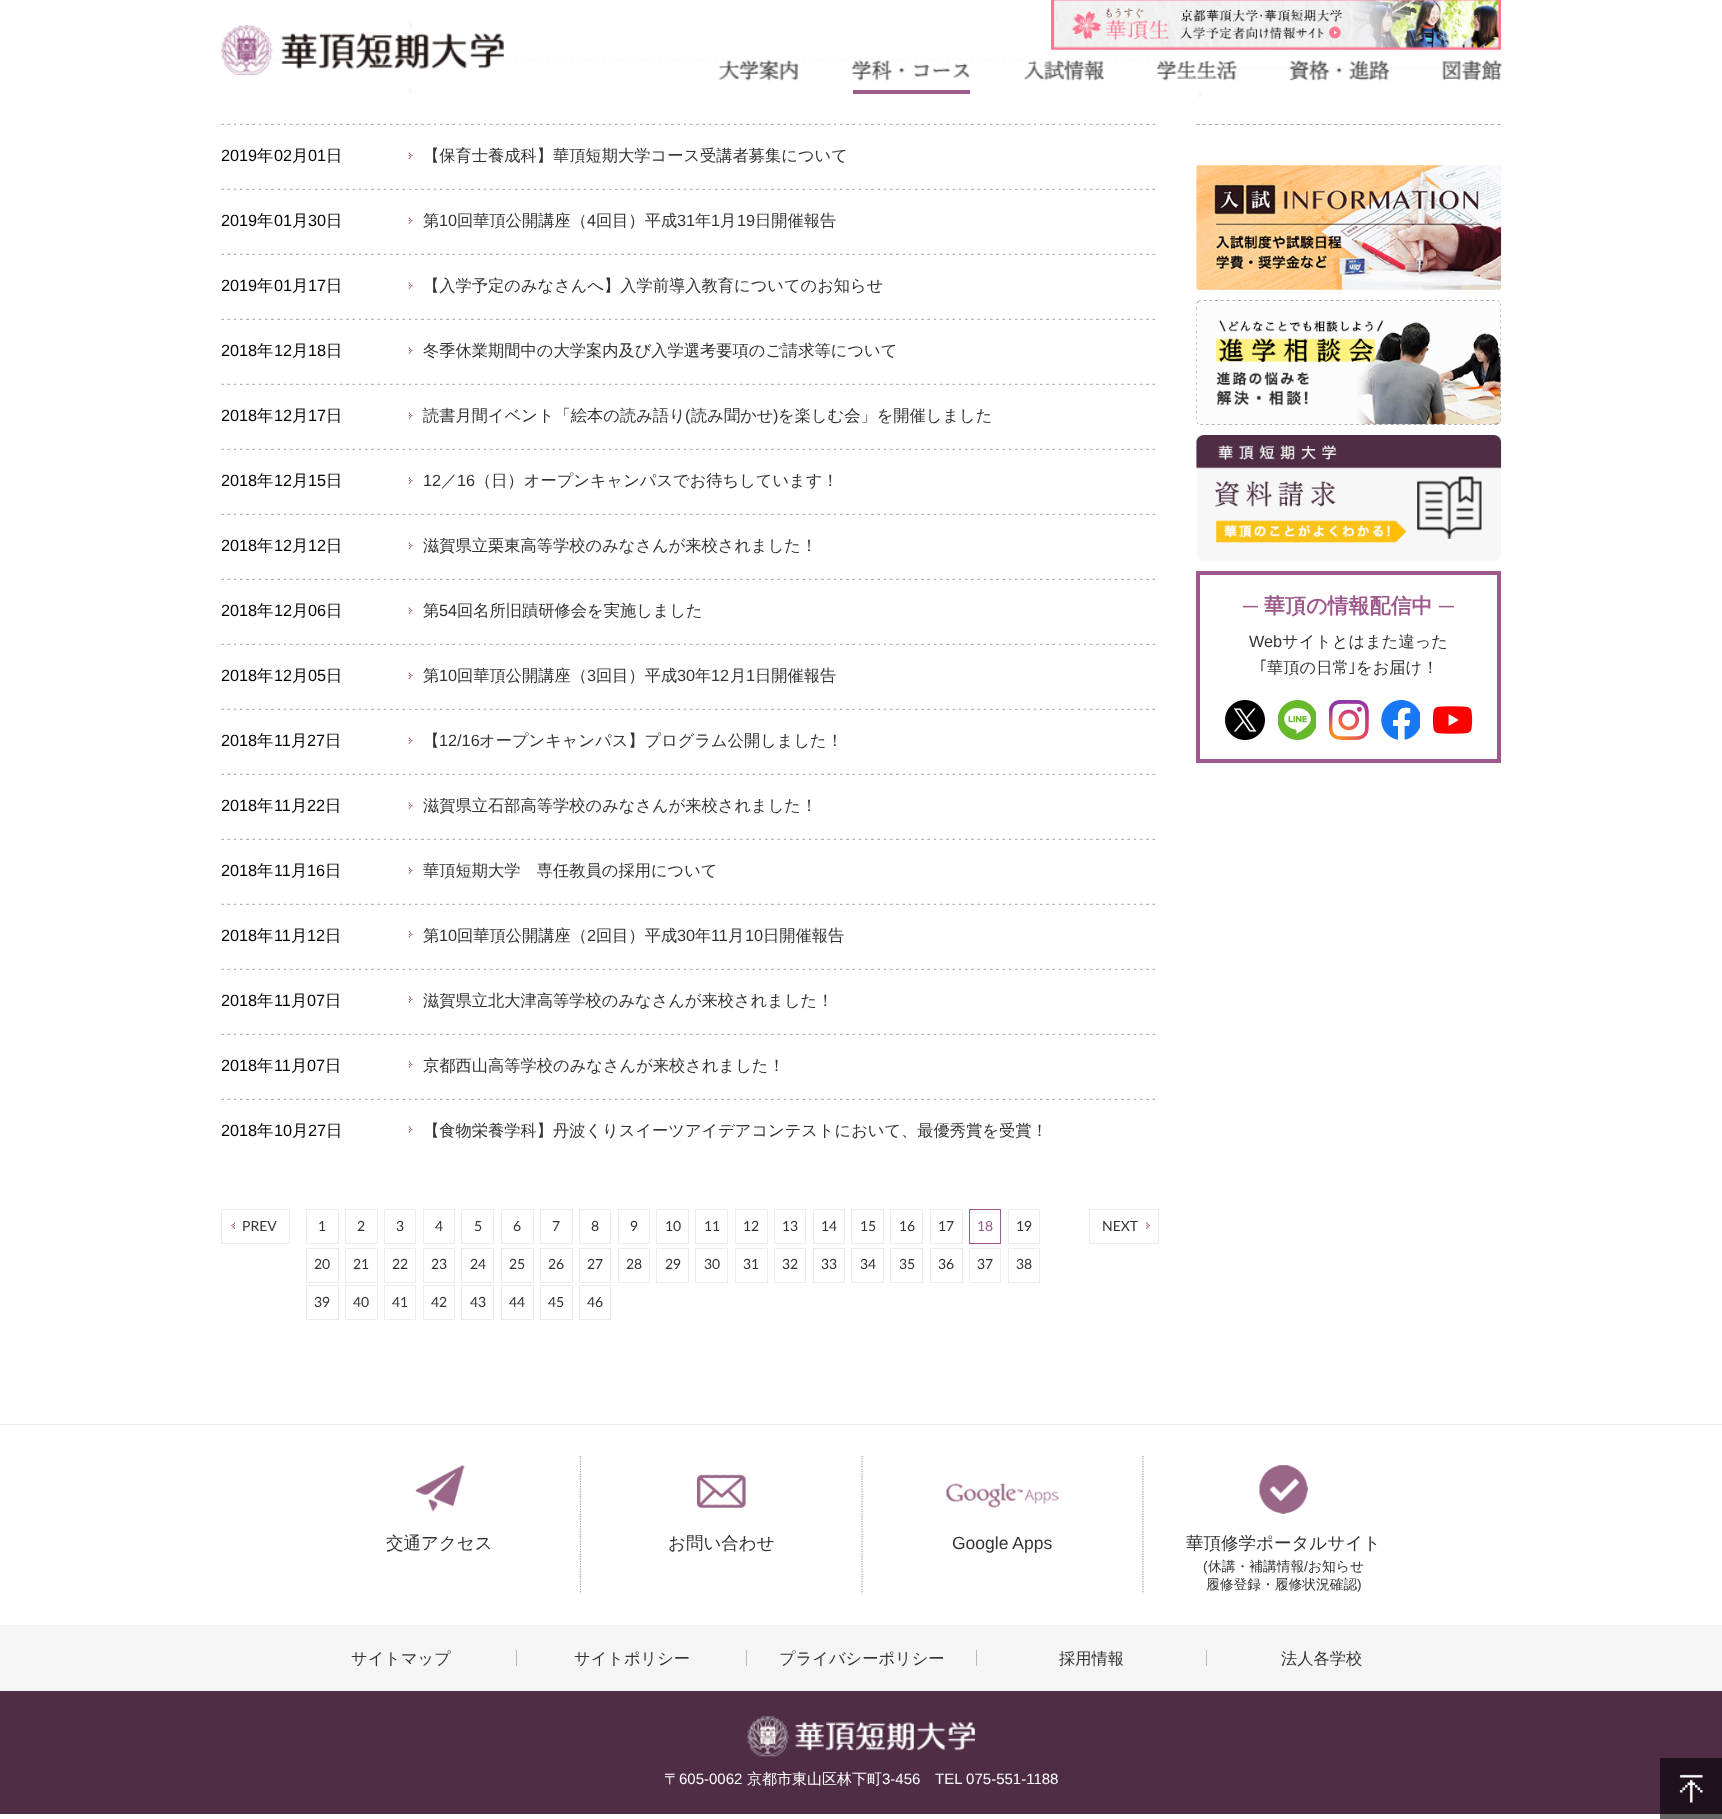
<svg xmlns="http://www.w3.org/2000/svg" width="1722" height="1819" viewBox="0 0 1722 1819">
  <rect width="100%" height="100%" fill="rgb(255,255,255)"/>
  <rect x="1660" y="1814" width="62" height="5" fill="rgb(102,102,102)"/>
  <image x="408" y="22" width="5" height="7" href="pic9.png"/>
  <image x="221" y="58" width="188" height="2" href="pic10.png"/>
  <image x="409" y="58" width="746" height="2" href="pic11.png"/>
  <image x="408" y="87" width="5" height="7" href="pic9.png"/>
  <path d="M1196 68H1501" fill="none" stroke="rgb(178,178,178)" stroke-width="1.2" stroke-dasharray="3.75 2.52"/>
  <image x="1198" y="91" width="5" height="7" href="pic15.png"/>
  <rect x="221" y="22" width="1280" height="76" fill="rgba(255,255,255,0.9)"/>
  <image x="1051" y="0" width="450" height="50" href="pic1.png"/>
  <image x="719" y="60" width="80" height="21" href="pic2.png"/>
  <image x="851" y="60" width="119" height="21" href="pic3.png"/>
  <rect x="853" y="90" width="117" height="4" fill="rgb(157,91,139)"/>
  <image x="1023" y="60" width="81" height="21" href="pic4.png"/>
  <image x="1156" y="60" width="81" height="21" href="pic5.png"/>
  <image x="1289" y="60" width="100" height="21" href="pic6.png"/>
  <image x="1442" y="60" width="60" height="21" href="pic7.png"/>
  <image x="221" y="25" width="283" height="50" href="pic8.png"/>
  <image x="221" y="123" width="188" height="2" href="pic10.png"/>
  <text x="221" y="161" font-family="Liberation Sans" font-size="16.25" fill="rgb(0,0,0)">2019</text>
  <text x="257" y="161" font-family="WenQuanYi Zen Hei" font-size="16.25" font-weight="500" fill="rgb(0,0,0)">年</text>
  <text x="274" y="161" font-family="Liberation Sans" font-size="16.25" fill="rgb(0,0,0)">02</text>
  <text x="292" y="161" font-family="WenQuanYi Zen Hei" font-size="16.25" font-weight="500" fill="rgb(0,0,0)">月</text>
  <text x="308" y="161" font-family="Liberation Sans" font-size="16.25" fill="rgb(0,0,0)">01</text>
  <text x="326" y="161" font-family="WenQuanYi Zen Hei" font-size="16.25" font-weight="500" fill="rgb(0,0,0)">日</text>
  <image x="409" y="123" width="746" height="2" href="pic11.png"/>
  <image x="408" y="152" width="5" height="7" href="pic9.png"/>
  <text x="423" y="161" font-family="WenQuanYi Zen Hei" font-size="16.25" font-weight="500" fill="rgb(51,51,51)">【保育士養成科】華頂短期大学コース受講者募集について</text>
  <image x="221" y="188" width="188" height="2" href="pic10.png"/>
  <text x="221" y="226" font-family="Liberation Sans" font-size="16.25" fill="rgb(0,0,0)">2019</text>
  <text x="257" y="226" font-family="WenQuanYi Zen Hei" font-size="16.25" font-weight="500" fill="rgb(0,0,0)">年</text>
  <text x="274" y="226" font-family="Liberation Sans" font-size="16.25" fill="rgb(0,0,0)">01</text>
  <text x="292" y="226" font-family="WenQuanYi Zen Hei" font-size="16.25" font-weight="500" fill="rgb(0,0,0)">月</text>
  <text x="308" y="226" font-family="Liberation Sans" font-size="16.25" fill="rgb(0,0,0)">30</text>
  <text x="326" y="226" font-family="WenQuanYi Zen Hei" font-size="16.25" font-weight="500" fill="rgb(0,0,0)">日</text>
  <image x="409" y="188" width="746" height="2" href="pic11.png"/>
  <image x="408" y="217" width="5" height="7" href="pic9.png"/>
  <text x="423" y="226" font-family="WenQuanYi Zen Hei" font-size="16.25" font-weight="500" fill="rgb(51,51,51)">第</text>
  <text x="439" y="226" font-family="Liberation Sans" font-size="16.25" fill="rgb(51,51,51)">10</text>
  <text x="457" y="226" font-family="WenQuanYi Zen Hei" font-size="16.25" font-weight="500" fill="rgb(51,51,51)">回華頂公開講座（</text>
  <text x="587" y="226" font-family="Liberation Sans" font-size="16.25" fill="rgb(51,51,51)">4</text>
  <text x="596" y="226" font-family="WenQuanYi Zen Hei" font-size="16.25" font-weight="500" fill="rgb(51,51,51)">回目）平成</text>
  <text x="677" y="226" font-family="Liberation Sans" font-size="16.25" fill="rgb(51,51,51)">31</text>
  <text x="695" y="226" font-family="WenQuanYi Zen Hei" font-size="16.25" font-weight="500" fill="rgb(51,51,51)">年</text>
  <text x="711" y="226" font-family="Liberation Sans" font-size="16.25" fill="rgb(51,51,51)">1</text>
  <text x="720" y="226" font-family="WenQuanYi Zen Hei" font-size="16.25" font-weight="500" fill="rgb(51,51,51)">月</text>
  <text x="737" y="226" font-family="Liberation Sans" font-size="16.25" fill="rgb(51,51,51)">19</text>
  <text x="755" y="226" font-family="WenQuanYi Zen Hei" font-size="16.25" font-weight="500" fill="rgb(51,51,51)">日開催報告</text>
  <image x="221" y="253" width="188" height="2" href="pic10.png"/>
  <text x="221" y="291" font-family="Liberation Sans" font-size="16.25" fill="rgb(0,0,0)">2019</text>
  <text x="257" y="291" font-family="WenQuanYi Zen Hei" font-size="16.25" font-weight="500" fill="rgb(0,0,0)">年</text>
  <text x="274" y="291" font-family="Liberation Sans" font-size="16.25" fill="rgb(0,0,0)">01</text>
  <text x="292" y="291" font-family="WenQuanYi Zen Hei" font-size="16.25" font-weight="500" fill="rgb(0,0,0)">月</text>
  <text x="308" y="291" font-family="Liberation Sans" font-size="16.25" fill="rgb(0,0,0)">17</text>
  <text x="326" y="291" font-family="WenQuanYi Zen Hei" font-size="16.25" font-weight="500" fill="rgb(0,0,0)">日</text>
  <image x="409" y="253" width="746" height="2" href="pic11.png"/>
  <image x="408" y="282" width="5" height="7" href="pic9.png"/>
  <text x="423" y="291" font-family="WenQuanYi Zen Hei" font-size="16.25" font-weight="500" fill="rgb(51,51,51)">【入学予定のみなさんへ】入学前導入教育についてのお知らせ</text>
  <image x="221" y="318" width="188" height="2" href="pic10.png"/>
  <text x="221" y="356" font-family="Liberation Sans" font-size="16.25" fill="rgb(0,0,0)">2018</text>
  <text x="257" y="356" font-family="WenQuanYi Zen Hei" font-size="16.25" font-weight="500" fill="rgb(0,0,0)">年</text>
  <text x="274" y="356" font-family="Liberation Sans" font-size="16.25" fill="rgb(0,0,0)">12</text>
  <text x="292" y="356" font-family="WenQuanYi Zen Hei" font-size="16.25" font-weight="500" fill="rgb(0,0,0)">月</text>
  <text x="308" y="356" font-family="Liberation Sans" font-size="16.25" fill="rgb(0,0,0)">18</text>
  <text x="326" y="356" font-family="WenQuanYi Zen Hei" font-size="16.25" font-weight="500" fill="rgb(0,0,0)">日</text>
  <image x="409" y="318" width="746" height="2" href="pic11.png"/>
  <image x="408" y="347" width="5" height="7" href="pic9.png"/>
  <text x="423" y="356" font-family="WenQuanYi Zen Hei" font-size="16.25" font-weight="500" fill="rgb(51,51,51)">冬季休業期間中の大学案内及び入学選考要項のご請求等について</text>
  <image x="221" y="383" width="188" height="2" href="pic10.png"/>
  <text x="221" y="421" font-family="Liberation Sans" font-size="16.25" fill="rgb(0,0,0)">2018</text>
  <text x="257" y="421" font-family="WenQuanYi Zen Hei" font-size="16.25" font-weight="500" fill="rgb(0,0,0)">年</text>
  <text x="274" y="421" font-family="Liberation Sans" font-size="16.25" fill="rgb(0,0,0)">12</text>
  <text x="292" y="421" font-family="WenQuanYi Zen Hei" font-size="16.25" font-weight="500" fill="rgb(0,0,0)">月</text>
  <text x="308" y="421" font-family="Liberation Sans" font-size="16.25" fill="rgb(0,0,0)">17</text>
  <text x="326" y="421" font-family="WenQuanYi Zen Hei" font-size="16.25" font-weight="500" fill="rgb(0,0,0)">日</text>
  <image x="409" y="383" width="746" height="2" href="pic11.png"/>
  <image x="408" y="412" width="5" height="7" href="pic9.png"/>
  <text x="423" y="421" font-family="WenQuanYi Zen Hei" font-size="16.25" font-weight="500" fill="rgb(51,51,51)">読書月間イベント「絵本の読み語り</text>
  <text x="685" y="421" font-family="Liberation Sans" font-size="16.25" fill="rgb(51,51,51)">(</text>
  <text x="691" y="421" font-family="WenQuanYi Zen Hei" font-size="16.25" font-weight="500" fill="rgb(51,51,51)">読み聞かせ</text>
  <text x="773" y="421" font-family="Liberation Sans" font-size="16.25" fill="rgb(51,51,51)">)</text>
  <text x="778" y="421" font-family="WenQuanYi Zen Hei" font-size="16.25" font-weight="500" fill="rgb(51,51,51)">を楽しむ会」を開催しました</text>
  <image x="221" y="448" width="188" height="2" href="pic10.png"/>
  <text x="221" y="486" font-family="Liberation Sans" font-size="16.25" fill="rgb(0,0,0)">2018</text>
  <text x="257" y="486" font-family="WenQuanYi Zen Hei" font-size="16.25" font-weight="500" fill="rgb(0,0,0)">年</text>
  <text x="274" y="486" font-family="Liberation Sans" font-size="16.25" fill="rgb(0,0,0)">12</text>
  <text x="292" y="486" font-family="WenQuanYi Zen Hei" font-size="16.25" font-weight="500" fill="rgb(0,0,0)">月</text>
  <text x="308" y="486" font-family="Liberation Sans" font-size="16.25" fill="rgb(0,0,0)">15</text>
  <text x="326" y="486" font-family="WenQuanYi Zen Hei" font-size="16.25" font-weight="500" fill="rgb(0,0,0)">日</text>
  <image x="409" y="448" width="746" height="2" href="pic11.png"/>
  <image x="408" y="477" width="5" height="7" href="pic9.png"/>
  <text x="423" y="486" font-family="Liberation Sans" font-size="16.25" fill="rgb(51,51,51)">12</text>
  <text x="441" y="486" font-family="WenQuanYi Zen Hei" font-size="16.25" font-weight="500" fill="rgb(51,51,51)">／</text>
  <text x="457" y="486" font-family="Liberation Sans" font-size="16.25" fill="rgb(51,51,51)">16</text>
  <text x="475" y="486" font-family="WenQuanYi Zen Hei" font-size="16.25" font-weight="500" fill="rgb(51,51,51)">（日）オープンキャンパスでお待ちしています！</text>
  <image x="221" y="513" width="188" height="2" href="pic10.png"/>
  <text x="221" y="551" font-family="Liberation Sans" font-size="16.25" fill="rgb(0,0,0)">2018</text>
  <text x="257" y="551" font-family="WenQuanYi Zen Hei" font-size="16.25" font-weight="500" fill="rgb(0,0,0)">年</text>
  <text x="274" y="551" font-family="Liberation Sans" font-size="16.25" fill="rgb(0,0,0)">12</text>
  <text x="292" y="551" font-family="WenQuanYi Zen Hei" font-size="16.25" font-weight="500" fill="rgb(0,0,0)">月</text>
  <text x="308" y="551" font-family="Liberation Sans" font-size="16.25" fill="rgb(0,0,0)">12</text>
  <text x="326" y="551" font-family="WenQuanYi Zen Hei" font-size="16.25" font-weight="500" fill="rgb(0,0,0)">日</text>
  <image x="409" y="513" width="746" height="2" href="pic11.png"/>
  <image x="408" y="542" width="5" height="7" href="pic9.png"/>
  <text x="423" y="551" font-family="WenQuanYi Zen Hei" font-size="16.25" font-weight="500" fill="rgb(51,51,51)">滋賀県立栗東高等学校のみなさんが来校されました！</text>
  <image x="221" y="578" width="188" height="2" href="pic10.png"/>
  <text x="221" y="616" font-family="Liberation Sans" font-size="16.25" fill="rgb(0,0,0)">2018</text>
  <text x="257" y="616" font-family="WenQuanYi Zen Hei" font-size="16.25" font-weight="500" fill="rgb(0,0,0)">年</text>
  <text x="274" y="616" font-family="Liberation Sans" font-size="16.25" fill="rgb(0,0,0)">12</text>
  <text x="292" y="616" font-family="WenQuanYi Zen Hei" font-size="16.25" font-weight="500" fill="rgb(0,0,0)">月</text>
  <text x="308" y="616" font-family="Liberation Sans" font-size="16.25" fill="rgb(0,0,0)">06</text>
  <text x="326" y="616" font-family="WenQuanYi Zen Hei" font-size="16.25" font-weight="500" fill="rgb(0,0,0)">日</text>
  <image x="409" y="578" width="746" height="2" href="pic11.png"/>
  <image x="408" y="607" width="5" height="7" href="pic9.png"/>
  <text x="423" y="616" font-family="WenQuanYi Zen Hei" font-size="16.25" font-weight="500" fill="rgb(51,51,51)">第</text>
  <text x="439" y="616" font-family="Liberation Sans" font-size="16.25" fill="rgb(51,51,51)">54</text>
  <text x="457" y="616" font-family="WenQuanYi Zen Hei" font-size="16.25" font-weight="500" fill="rgb(51,51,51)">回名所旧蹟研修会を実施しました</text>
  <image x="221" y="643" width="188" height="2" href="pic10.png"/>
  <text x="221" y="681" font-family="Liberation Sans" font-size="16.25" fill="rgb(0,0,0)">2018</text>
  <text x="257" y="681" font-family="WenQuanYi Zen Hei" font-size="16.25" font-weight="500" fill="rgb(0,0,0)">年</text>
  <text x="274" y="681" font-family="Liberation Sans" font-size="16.25" fill="rgb(0,0,0)">12</text>
  <text x="292" y="681" font-family="WenQuanYi Zen Hei" font-size="16.25" font-weight="500" fill="rgb(0,0,0)">月</text>
  <text x="308" y="681" font-family="Liberation Sans" font-size="16.25" fill="rgb(0,0,0)">05</text>
  <text x="326" y="681" font-family="WenQuanYi Zen Hei" font-size="16.25" font-weight="500" fill="rgb(0,0,0)">日</text>
  <image x="409" y="643" width="746" height="2" href="pic11.png"/>
  <image x="408" y="672" width="5" height="7" href="pic9.png"/>
  <text x="423" y="681" font-family="WenQuanYi Zen Hei" font-size="16.25" font-weight="500" fill="rgb(51,51,51)">第</text>
  <text x="439" y="681" font-family="Liberation Sans" font-size="16.25" fill="rgb(51,51,51)">10</text>
  <text x="457" y="681" font-family="WenQuanYi Zen Hei" font-size="16.25" font-weight="500" fill="rgb(51,51,51)">回華頂公開講座（</text>
  <text x="587" y="681" font-family="Liberation Sans" font-size="16.25" fill="rgb(51,51,51)">3</text>
  <text x="596" y="681" font-family="WenQuanYi Zen Hei" font-size="16.25" font-weight="500" fill="rgb(51,51,51)">回目）平成</text>
  <text x="677" y="681" font-family="Liberation Sans" font-size="16.25" fill="rgb(51,51,51)">30</text>
  <text x="695" y="681" font-family="WenQuanYi Zen Hei" font-size="16.25" font-weight="500" fill="rgb(51,51,51)">年</text>
  <text x="711" y="681" font-family="Liberation Sans" font-size="16.25" fill="rgb(51,51,51)">12</text>
  <text x="730" y="681" font-family="WenQuanYi Zen Hei" font-size="16.25" font-weight="500" fill="rgb(51,51,51)">月</text>
  <text x="746" y="681" font-family="Liberation Sans" font-size="16.25" fill="rgb(51,51,51)">1</text>
  <text x="755" y="681" font-family="WenQuanYi Zen Hei" font-size="16.25" font-weight="500" fill="rgb(51,51,51)">日開催報告</text>
  <image x="221" y="708" width="188" height="2" href="pic10.png"/>
  <text x="221" y="746" font-family="Liberation Sans" font-size="16.25" fill="rgb(0,0,0)">2018</text>
  <text x="257" y="746" font-family="WenQuanYi Zen Hei" font-size="16.25" font-weight="500" fill="rgb(0,0,0)">年</text>
  <text x="274" y="746" font-family="Liberation Sans" font-size="16.25" fill="rgb(0,0,0)">11</text>
  <text x="291" y="746" font-family="WenQuanYi Zen Hei" font-size="16.25" font-weight="500" fill="rgb(0,0,0)">月</text>
  <text x="307" y="746" font-family="Liberation Sans" font-size="16.25" fill="rgb(0,0,0)">27</text>
  <text x="325" y="746" font-family="WenQuanYi Zen Hei" font-size="16.25" font-weight="500" fill="rgb(0,0,0)">日</text>
  <image x="409" y="708" width="746" height="2" href="pic11.png"/>
  <image x="408" y="737" width="5" height="7" href="pic9.png"/>
  <text x="423" y="746" font-family="WenQuanYi Zen Hei" font-size="16.25" font-weight="500" fill="rgb(51,51,51)">【</text>
  <text x="439" y="746" font-family="Liberation Sans" font-size="16.25" fill="rgb(51,51,51)">12/16</text>
  <text x="479" y="746" font-family="WenQuanYi Zen Hei" font-size="16.25" font-weight="500" fill="rgb(51,51,51)">オープンキャンパス】プログラム公開しました！</text>
  <image x="221" y="773" width="188" height="2" href="pic10.png"/>
  <text x="221" y="811" font-family="Liberation Sans" font-size="16.25" fill="rgb(0,0,0)">2018</text>
  <text x="257" y="811" font-family="WenQuanYi Zen Hei" font-size="16.25" font-weight="500" fill="rgb(0,0,0)">年</text>
  <text x="274" y="811" font-family="Liberation Sans" font-size="16.25" fill="rgb(0,0,0)">11</text>
  <text x="291" y="811" font-family="WenQuanYi Zen Hei" font-size="16.25" font-weight="500" fill="rgb(0,0,0)">月</text>
  <text x="307" y="811" font-family="Liberation Sans" font-size="16.25" fill="rgb(0,0,0)">22</text>
  <text x="325" y="811" font-family="WenQuanYi Zen Hei" font-size="16.25" font-weight="500" fill="rgb(0,0,0)">日</text>
  <image x="409" y="773" width="746" height="2" href="pic11.png"/>
  <image x="408" y="802" width="5" height="7" href="pic9.png"/>
  <text x="423" y="811" font-family="WenQuanYi Zen Hei" font-size="16.25" font-weight="500" fill="rgb(51,51,51)">滋賀県立石部高等学校のみなさんが来校されました！</text>
  <image x="221" y="838" width="188" height="2" href="pic10.png"/>
  <text x="221" y="876" font-family="Liberation Sans" font-size="16.25" fill="rgb(0,0,0)">2018</text>
  <text x="257" y="876" font-family="WenQuanYi Zen Hei" font-size="16.25" font-weight="500" fill="rgb(0,0,0)">年</text>
  <text x="274" y="876" font-family="Liberation Sans" font-size="16.25" fill="rgb(0,0,0)">11</text>
  <text x="291" y="876" font-family="WenQuanYi Zen Hei" font-size="16.25" font-weight="500" fill="rgb(0,0,0)">月</text>
  <text x="307" y="876" font-family="Liberation Sans" font-size="16.25" fill="rgb(0,0,0)">16</text>
  <text x="325" y="876" font-family="WenQuanYi Zen Hei" font-size="16.25" font-weight="500" fill="rgb(0,0,0)">日</text>
  <image x="409" y="838" width="746" height="2" href="pic11.png"/>
  <image x="408" y="867" width="5" height="7" href="pic9.png"/>
  <text x="423" y="876" font-family="WenQuanYi Zen Hei" font-size="16.25" font-weight="500" fill="rgb(51,51,51)">華頂短期大学　専任教員の採用について</text>
  <image x="221" y="903" width="188" height="2" href="pic10.png"/>
  <text x="221" y="941" font-family="Liberation Sans" font-size="16.25" fill="rgb(0,0,0)">2018</text>
  <text x="257" y="941" font-family="WenQuanYi Zen Hei" font-size="16.25" font-weight="500" fill="rgb(0,0,0)">年</text>
  <text x="274" y="941" font-family="Liberation Sans" font-size="16.25" fill="rgb(0,0,0)">11</text>
  <text x="291" y="941" font-family="WenQuanYi Zen Hei" font-size="16.25" font-weight="500" fill="rgb(0,0,0)">月</text>
  <text x="307" y="941" font-family="Liberation Sans" font-size="16.25" fill="rgb(0,0,0)">12</text>
  <text x="325" y="941" font-family="WenQuanYi Zen Hei" font-size="16.25" font-weight="500" fill="rgb(0,0,0)">日</text>
  <image x="409" y="903" width="746" height="2" href="pic11.png"/>
  <image x="408" y="931" width="5" height="7" href="pic12.png"/>
  <text x="423" y="941" font-family="WenQuanYi Zen Hei" font-size="16.25" font-weight="500" fill="rgb(51,51,51)">第</text>
  <text x="439" y="941" font-family="Liberation Sans" font-size="16.25" fill="rgb(51,51,51)">10</text>
  <text x="457" y="941" font-family="WenQuanYi Zen Hei" font-size="16.25" font-weight="500" fill="rgb(51,51,51)">回華頂公開講座（</text>
  <text x="587" y="941" font-family="Liberation Sans" font-size="16.25" fill="rgb(51,51,51)">2</text>
  <text x="596" y="941" font-family="WenQuanYi Zen Hei" font-size="16.25" font-weight="500" fill="rgb(51,51,51)">回目）平成</text>
  <text x="677" y="941" font-family="Liberation Sans" font-size="16.25" fill="rgb(51,51,51)">30</text>
  <text x="695" y="941" font-family="WenQuanYi Zen Hei" font-size="16.25" font-weight="500" fill="rgb(51,51,51)">年</text>
  <text x="711" y="941" font-family="Liberation Sans" font-size="16.25" fill="rgb(51,51,51)">11</text>
  <text x="728" y="941" font-family="WenQuanYi Zen Hei" font-size="16.25" font-weight="500" fill="rgb(51,51,51)">月</text>
  <text x="745" y="941" font-family="Liberation Sans" font-size="16.25" fill="rgb(51,51,51)">10</text>
  <text x="763" y="941" font-family="WenQuanYi Zen Hei" font-size="16.25" font-weight="500" fill="rgb(51,51,51)">日開催報告</text>
  <image x="221" y="968" width="188" height="2" href="pic10.png"/>
  <text x="221" y="1006" font-family="Liberation Sans" font-size="16.25" fill="rgb(0,0,0)">2018</text>
  <text x="257" y="1006" font-family="WenQuanYi Zen Hei" font-size="16.25" font-weight="500" fill="rgb(0,0,0)">年</text>
  <text x="274" y="1006" font-family="Liberation Sans" font-size="16.25" fill="rgb(0,0,0)">11</text>
  <text x="291" y="1006" font-family="WenQuanYi Zen Hei" font-size="16.25" font-weight="500" fill="rgb(0,0,0)">月</text>
  <text x="307" y="1006" font-family="Liberation Sans" font-size="16.25" fill="rgb(0,0,0)">07</text>
  <text x="325" y="1006" font-family="WenQuanYi Zen Hei" font-size="16.25" font-weight="500" fill="rgb(0,0,0)">日</text>
  <image x="409" y="968" width="746" height="2" href="pic11.png"/>
  <image x="408" y="996" width="5" height="7" href="pic12.png"/>
  <text x="423" y="1006" font-family="WenQuanYi Zen Hei" font-size="16.25" font-weight="500" fill="rgb(51,51,51)">滋賀県立北大津高等学校のみなさんが来校されました！</text>
  <image x="221" y="1033" width="188" height="2" href="pic10.png"/>
  <text x="221" y="1071" font-family="Liberation Sans" font-size="16.25" fill="rgb(0,0,0)">2018</text>
  <text x="257" y="1071" font-family="WenQuanYi Zen Hei" font-size="16.25" font-weight="500" fill="rgb(0,0,0)">年</text>
  <text x="274" y="1071" font-family="Liberation Sans" font-size="16.25" fill="rgb(0,0,0)">11</text>
  <text x="291" y="1071" font-family="WenQuanYi Zen Hei" font-size="16.25" font-weight="500" fill="rgb(0,0,0)">月</text>
  <text x="307" y="1071" font-family="Liberation Sans" font-size="16.25" fill="rgb(0,0,0)">07</text>
  <text x="325" y="1071" font-family="WenQuanYi Zen Hei" font-size="16.25" font-weight="500" fill="rgb(0,0,0)">日</text>
  <image x="409" y="1033" width="746" height="2" href="pic11.png"/>
  <image x="408" y="1061" width="5" height="7" href="pic12.png"/>
  <text x="423" y="1071" font-family="WenQuanYi Zen Hei" font-size="16.25" font-weight="500" fill="rgb(51,51,51)">京都西山高等学校のみなさんが来校されました！</text>
  <image x="221" y="1098" width="188" height="2" href="pic10.png"/>
  <text x="221" y="1136" font-family="Liberation Sans" font-size="16.25" fill="rgb(0,0,0)">2018</text>
  <text x="257" y="1136" font-family="WenQuanYi Zen Hei" font-size="16.25" font-weight="500" fill="rgb(0,0,0)">年</text>
  <text x="274" y="1136" font-family="Liberation Sans" font-size="16.25" fill="rgb(0,0,0)">10</text>
  <text x="292" y="1136" font-family="WenQuanYi Zen Hei" font-size="16.25" font-weight="500" fill="rgb(0,0,0)">月</text>
  <text x="308" y="1136" font-family="Liberation Sans" font-size="16.25" fill="rgb(0,0,0)">27</text>
  <text x="326" y="1136" font-family="WenQuanYi Zen Hei" font-size="16.25" font-weight="500" fill="rgb(0,0,0)">日</text>
  <image x="409" y="1098" width="746" height="2" href="pic11.png"/>
  <image x="408" y="1126" width="5" height="7" href="pic12.png"/>
  <text x="423" y="1136" font-family="WenQuanYi Zen Hei" font-size="16.25" font-weight="500" fill="rgb(51,51,51)">【食物栄養学科】丹波くりスイーツアイデアコンテストにおいて、最優秀賞を受賞！</text>
  <rect x="221.5" y="1209.5" width="68" height="34" fill="none" stroke="rgb(236,236,236)"/>
  <image x="231" y="1222" width="4" height="7" href="pic13.png"/>
  <text x="242" y="1231" font-family="Lato" font-size="14" fill="rgb(51,51,51)">PREV</text>
  <rect x="306.5" y="1209.5" width="32" height="34" fill="none" stroke="rgb(236,236,236)"/>
  <text x="318" y="1231" font-family="Lato" font-size="14" fill="rgb(51,51,51)">1</text>
  <rect x="345.5" y="1209.5" width="32" height="34" fill="none" stroke="rgb(236,236,236)"/>
  <text x="357" y="1231" font-family="Lato" font-size="14" fill="rgb(51,51,51)">2</text>
  <rect x="384.5" y="1209.5" width="31" height="34" fill="none" stroke="rgb(236,236,236)"/>
  <text x="396" y="1231" font-family="Lato" font-size="14" fill="rgb(51,51,51)">3</text>
  <rect x="423.5" y="1209.5" width="31" height="34" fill="none" stroke="rgb(236,236,236)"/>
  <text x="435" y="1231" font-family="Lato" font-size="14" fill="rgb(51,51,51)">4</text>
  <rect x="461.5" y="1209.5" width="32" height="34" fill="none" stroke="rgb(236,236,236)"/>
  <text x="474" y="1231" font-family="Lato" font-size="14" fill="rgb(51,51,51)">5</text>
  <rect x="501.5" y="1209.5" width="32" height="34" fill="none" stroke="rgb(236,236,236)"/>
  <text x="513" y="1231" font-family="Lato" font-size="14" fill="rgb(51,51,51)">6</text>
  <rect x="540.5" y="1209.5" width="32" height="34" fill="none" stroke="rgb(236,236,236)"/>
  <text x="552" y="1231" font-family="Lato" font-size="14" fill="rgb(51,51,51)">7</text>
  <rect x="579.5" y="1209.5" width="31" height="34" fill="none" stroke="rgb(236,236,236)"/>
  <text x="591" y="1231" font-family="Lato" font-size="14" fill="rgb(51,51,51)">8</text>
  <rect x="618.5" y="1209.5" width="31" height="34" fill="none" stroke="rgb(236,236,236)"/>
  <text x="630" y="1231" font-family="Lato" font-size="14" fill="rgb(51,51,51)">9</text>
  <rect x="656.5" y="1209.5" width="32" height="34" fill="none" stroke="rgb(236,236,236)"/>
  <text x="665" y="1231" font-family="Lato" font-size="14" fill="rgb(51,51,51)">10</text>
  <rect x="695.5" y="1209.5" width="32" height="34" fill="none" stroke="rgb(236,236,236)"/>
  <text x="704" y="1231" font-family="Lato" font-size="14" fill="rgb(51,51,51)">11</text>
  <rect x="735.5" y="1209.5" width="32" height="34" fill="none" stroke="rgb(236,236,236)"/>
  <text x="743" y="1231" font-family="Lato" font-size="14" fill="rgb(51,51,51)">12</text>
  <rect x="774.5" y="1209.5" width="31" height="34" fill="none" stroke="rgb(236,236,236)"/>
  <text x="782" y="1231" font-family="Lato" font-size="14" fill="rgb(51,51,51)">13</text>
  <rect x="813.5" y="1209.5" width="31" height="34" fill="none" stroke="rgb(236,236,236)"/>
  <text x="821" y="1231" font-family="Lato" font-size="14" fill="rgb(51,51,51)">14</text>
  <rect x="851.5" y="1209.5" width="32" height="34" fill="none" stroke="rgb(236,236,236)"/>
  <text x="860" y="1231" font-family="Lato" font-size="14" fill="rgb(51,51,51)">15</text>
  <rect x="890.5" y="1209.5" width="32" height="34" fill="none" stroke="rgb(236,236,236)"/>
  <text x="899" y="1231" font-family="Lato" font-size="14" fill="rgb(51,51,51)">16</text>
  <rect x="930.5" y="1209.5" width="32" height="34" fill="none" stroke="rgb(236,236,236)"/>
  <text x="938" y="1231" font-family="Lato" font-size="14" fill="rgb(51,51,51)">17</text>
  <rect x="969.5" y="1209.5" width="31" height="34" fill="none" stroke="rgb(158,89,140)"/>
  <text x="977" y="1231" font-family="Lato" font-size="14" fill="rgb(158,89,140)">18</text>
  <rect x="1008.5" y="1209.5" width="31" height="34" fill="none" stroke="rgb(236,236,236)"/>
  <text x="1016" y="1231" font-family="Lato" font-size="14" fill="rgb(51,51,51)">19</text>
  <rect x="306.5" y="1248.5" width="32" height="34" fill="none" stroke="rgb(236,236,236)"/>
  <text x="314" y="1269" font-family="Lato" font-size="14" fill="rgb(51,51,51)">20</text>
  <rect x="345.5" y="1248.5" width="32" height="34" fill="none" stroke="rgb(236,236,236)"/>
  <text x="353" y="1269" font-family="Lato" font-size="14" fill="rgb(51,51,51)">21</text>
  <rect x="384.5" y="1248.5" width="31" height="34" fill="none" stroke="rgb(236,236,236)"/>
  <text x="392" y="1269" font-family="Lato" font-size="14" fill="rgb(51,51,51)">22</text>
  <rect x="423.5" y="1248.5" width="31" height="34" fill="none" stroke="rgb(236,236,236)"/>
  <text x="431" y="1269" font-family="Lato" font-size="14" fill="rgb(51,51,51)">23</text>
  <rect x="461.5" y="1248.5" width="32" height="34" fill="none" stroke="rgb(236,236,236)"/>
  <text x="470" y="1269" font-family="Lato" font-size="14" fill="rgb(51,51,51)">24</text>
  <rect x="501.5" y="1248.5" width="32" height="34" fill="none" stroke="rgb(236,236,236)"/>
  <text x="509" y="1269" font-family="Lato" font-size="14" fill="rgb(51,51,51)">25</text>
  <rect x="540.5" y="1248.5" width="32" height="34" fill="none" stroke="rgb(236,236,236)"/>
  <text x="548" y="1269" font-family="Lato" font-size="14" fill="rgb(51,51,51)">26</text>
  <rect x="579.5" y="1248.5" width="31" height="34" fill="none" stroke="rgb(236,236,236)"/>
  <text x="587" y="1269" font-family="Lato" font-size="14" fill="rgb(51,51,51)">27</text>
  <rect x="618.5" y="1248.5" width="31" height="34" fill="none" stroke="rgb(236,236,236)"/>
  <text x="626" y="1269" font-family="Lato" font-size="14" fill="rgb(51,51,51)">28</text>
  <rect x="656.5" y="1248.5" width="32" height="34" fill="none" stroke="rgb(236,236,236)"/>
  <text x="665" y="1269" font-family="Lato" font-size="14" fill="rgb(51,51,51)">29</text>
  <rect x="695.5" y="1248.5" width="32" height="34" fill="none" stroke="rgb(236,236,236)"/>
  <text x="704" y="1269" font-family="Lato" font-size="14" fill="rgb(51,51,51)">30</text>
  <rect x="735.5" y="1248.5" width="32" height="34" fill="none" stroke="rgb(236,236,236)"/>
  <text x="743" y="1269" font-family="Lato" font-size="14" fill="rgb(51,51,51)">31</text>
  <rect x="774.5" y="1248.5" width="31" height="34" fill="none" stroke="rgb(236,236,236)"/>
  <text x="782" y="1269" font-family="Lato" font-size="14" fill="rgb(51,51,51)">32</text>
  <rect x="813.5" y="1248.5" width="31" height="34" fill="none" stroke="rgb(236,236,236)"/>
  <text x="821" y="1269" font-family="Lato" font-size="14" fill="rgb(51,51,51)">33</text>
  <rect x="851.5" y="1248.5" width="32" height="34" fill="none" stroke="rgb(236,236,236)"/>
  <text x="860" y="1269" font-family="Lato" font-size="14" fill="rgb(51,51,51)">34</text>
  <rect x="890.5" y="1248.5" width="32" height="34" fill="none" stroke="rgb(236,236,236)"/>
  <text x="899" y="1269" font-family="Lato" font-size="14" fill="rgb(51,51,51)">35</text>
  <rect x="930.5" y="1248.5" width="32" height="34" fill="none" stroke="rgb(236,236,236)"/>
  <text x="938" y="1269" font-family="Lato" font-size="14" fill="rgb(51,51,51)">36</text>
  <rect x="969.5" y="1248.5" width="31" height="34" fill="none" stroke="rgb(236,236,236)"/>
  <text x="977" y="1269" font-family="Lato" font-size="14" fill="rgb(51,51,51)">37</text>
  <rect x="1008.5" y="1248.5" width="31" height="34" fill="none" stroke="rgb(236,236,236)"/>
  <text x="1016" y="1269" font-family="Lato" font-size="14" fill="rgb(51,51,51)">38</text>
  <rect x="306.5" y="1285.5" width="32" height="34" fill="none" stroke="rgb(236,236,236)"/>
  <text x="314" y="1307" font-family="Lato" font-size="14" fill="rgb(51,51,51)">39</text>
  <rect x="345.5" y="1285.5" width="32" height="34" fill="none" stroke="rgb(236,236,236)"/>
  <text x="353" y="1307" font-family="Lato" font-size="14" fill="rgb(51,51,51)">40</text>
  <rect x="384.5" y="1285.5" width="31" height="34" fill="none" stroke="rgb(236,236,236)"/>
  <text x="392" y="1307" font-family="Lato" font-size="14" fill="rgb(51,51,51)">41</text>
  <rect x="423.5" y="1285.5" width="31" height="34" fill="none" stroke="rgb(236,236,236)"/>
  <text x="431" y="1307" font-family="Lato" font-size="14" fill="rgb(51,51,51)">42</text>
  <rect x="461.5" y="1285.5" width="32" height="34" fill="none" stroke="rgb(236,236,236)"/>
  <text x="470" y="1307" font-family="Lato" font-size="14" fill="rgb(51,51,51)">43</text>
  <rect x="501.5" y="1285.5" width="32" height="34" fill="none" stroke="rgb(236,236,236)"/>
  <text x="509" y="1307" font-family="Lato" font-size="14" fill="rgb(51,51,51)">44</text>
  <rect x="540.5" y="1285.5" width="32" height="34" fill="none" stroke="rgb(236,236,236)"/>
  <text x="548" y="1307" font-family="Lato" font-size="14" fill="rgb(51,51,51)">45</text>
  <rect x="579.5" y="1285.5" width="31" height="34" fill="none" stroke="rgb(236,236,236)"/>
  <text x="587" y="1307" font-family="Lato" font-size="14" fill="rgb(51,51,51)">46</text>
  <rect x="1089.5" y="1209.5" width="69" height="34" fill="none" stroke="rgb(236,236,236)"/>
  <text x="1102" y="1231" font-family="Lato" font-size="14" fill="rgb(51,51,51)">NEXT</text>
  <image x="1146" y="1222" width="4" height="7" href="pic14.png"/>
  <path d="M1196 124.5H1501" fill="none" stroke="rgb(178,178,178)" stroke-width="1.2" stroke-dasharray="3.75 2.52"/>
  <image x="1196" y="165" width="306" height="125" href="pic16.png"/>
  <image x="1196" y="300" width="306" height="125" href="pic17.png"/>
  <image x="1196" y="435" width="306" height="126" href="pic18.png"/>
  <rect x="1198" y="573" width="301" height="188" fill="none" stroke="rgb(158,89,140)" stroke-width="4"/>
  <text x="1243" y="613" font-family="Liberation Sans" font-size="21" font-weight="bold" fill="rgb(158,89,140)">─</text>
  <text x="1264" y="613" font-family="WenQuanYi Zen Hei" font-size="21" font-weight="bold" fill="rgb(158,89,140)">華頂の情報配信中</text>
  <text x="1439" y="613" font-family="Liberation Sans" font-size="21" font-weight="bold" fill="rgb(158,89,140)">─</text>
  <text x="1249" y="647" font-family="Liberation Sans" font-size="16.25" fill="rgb(51,51,51)">Web</text>
  <text x="1282" y="647" font-family="WenQuanYi Zen Hei" font-size="16.25" font-weight="500" fill="rgb(51,51,51)">サイトとはまた違った</text>
  <text x="1259" y="673" font-family="IPAPGothic" font-size="16.25" fill="rgb(51,51,51)">｢</text>
  <text x="1267" y="673" font-family="WenQuanYi Zen Hei" font-size="16.25" font-weight="500" fill="rgb(51,51,51)">華頂の日常</text>
  <text x="1348" y="673" font-family="IPAPGothic" font-size="16.25" fill="rgb(51,51,51)">｣</text>
  <text x="1356" y="673" font-family="WenQuanYi Zen Hei" font-size="16.25" font-weight="500" fill="rgb(51,51,51)">をお届け！</text>
  <image x="1225" y="700" width="40" height="40" href="pic19.png"/>
  <image x="1278" y="700" width="38" height="40" href="pic20.png"/>
  <image x="1329" y="700" width="40" height="40" href="pic21.png"/>
  <image x="1381" y="700" width="39" height="40" href="pic22.png"/>
  <image x="1433" y="706" width="40" height="28" href="pic23.png"/>
  <rect x="0" y="1424" width="1722" height="1" fill="rgb(235,235,235)"/>
  <image x="415" y="1465" width="50" height="47" href="pic24.png"/>
  <text x="386" y="1549" font-family="WenQuanYi Zen Hei" font-size="17.5" font-weight="500" fill="rgb(51,51,51)">交通アクセス</text>
  <image x="697" y="1474" width="49" height="34" href="pic25.png"/>
  <path d="M580.5 1456V1594" fill="none" stroke="rgb(183,147,171)" stroke-width="1.2" stroke-dasharray="1.25 1.25"/>
  <text x="668" y="1549" font-family="WenQuanYi Zen Hei" font-size="17.5" font-weight="500" fill="rgb(51,51,51)">お問い合わせ</text>
  <image x="946" y="1483" width="113" height="25" href="pic26.png"/>
  <path d="M862 1456V1594" fill="none" stroke="rgb(183,147,171)" stroke-width="1.2" stroke-dasharray="1.25 1.25"/>
  <text x="952" y="1549" font-family="Liberation Sans" font-size="17.5" fill="rgb(51,51,51)">Google Apps</text>
  <image x="1259" y="1465" width="49" height="49" href="pic27.png"/>
  <path d="M1143 1456V1594" fill="none" stroke="rgb(183,147,171)" stroke-width="1.2" stroke-dasharray="1.25 1.25"/>
  <text x="1186" y="1549" font-family="WenQuanYi Zen Hei" font-size="17.5" font-weight="500" fill="rgb(51,51,51)">華頂修学ポータルサイト</text>
  <text x="1203" y="1571" font-family="Liberation Sans" font-size="13.75" fill="rgb(51,51,51)">(</text>
  <text x="1208" y="1571" font-family="WenQuanYi Zen Hei" font-size="13.75" font-weight="500" fill="rgb(51,51,51)">休講・補講情報</text>
  <text x="1304" y="1571" font-family="Liberation Sans" font-size="13.75" fill="rgb(51,51,51)">/</text>
  <g font-family="WenQuanYi Zen Hei" font-size="13.75" font-weight="500" fill="rgb(51,51,51)">
    <text x="1308" y="1571">お知らせ</text>
    <text x="1206" y="1589">履修登録・履修状況確認</text>
  </g>
  <text x="1357" y="1589" font-family="Liberation Sans" font-size="13.75" fill="rgb(51,51,51)">)</text>
  <rect x="0" y="1625" width="1722" height="66" fill="rgb(245,245,245)"/>
  <text x="351" y="1664" font-family="WenQuanYi Zen Hei" font-size="16.25" font-weight="500" fill="rgb(51,51,51)">サイトマップ</text>
  <rect x="516" y="1650" width="1" height="16" fill="rgb(186,186,186)"/>
  <text x="574" y="1664" font-family="WenQuanYi Zen Hei" font-size="16.25" font-weight="500" fill="rgb(51,51,51)">サイトポリシー</text>
  <rect x="746" y="1650" width="1" height="16" fill="rgb(186,186,186)"/>
  <text x="779" y="1664" font-family="WenQuanYi Zen Hei" font-size="16.25" font-weight="500" fill="rgb(51,51,51)">プライバシーポリシー</text>
  <rect x="976" y="1650" width="1" height="16" fill="rgb(186,186,186)"/>
  <text x="1059" y="1664" font-family="WenQuanYi Zen Hei" font-size="16.25" font-weight="500" fill="rgb(51,51,51)">採用情報</text>
  <rect x="1206" y="1650" width="1" height="16" fill="rgb(186,186,186)"/>
  <text x="1281" y="1664" font-family="WenQuanYi Zen Hei" font-size="16.25" font-weight="500" fill="rgb(51,51,51)">法人各学校</text>
  <rect x="0" y="1691" width="1722" height="123" fill="rgb(78,45,69)"/>
  <rect x="1660" y="1758" width="62" height="56" fill="rgb(31,18,28)"/>
  <image x="747" y="1716" width="228" height="41" href="pic28.png"/>
  <text x="664" y="1784" font-family="WenQuanYi Zen Hei" font-size="15" font-weight="500" fill="rgb(255,255,255)">〒</text>
  <text x="679" y="1784" font-family="Liberation Sans" font-size="15" fill="rgb(255,255,255)">605-0062</text>
  <text x="747" y="1784" font-family="WenQuanYi Zen Hei" font-size="15" font-weight="500" fill="rgb(255,255,255)">京都市東山区林下町</text>
  <g font-family="Liberation Sans" font-size="15" fill="rgb(255,255,255)">
    <text x="882" y="1784">3-456</text>
    <text x="935" y="1784">TEL 075-551-1188</text>
  </g>
  <image x="1679" y="1774" width="24" height="29" href="pic29.png"/>
</svg>
